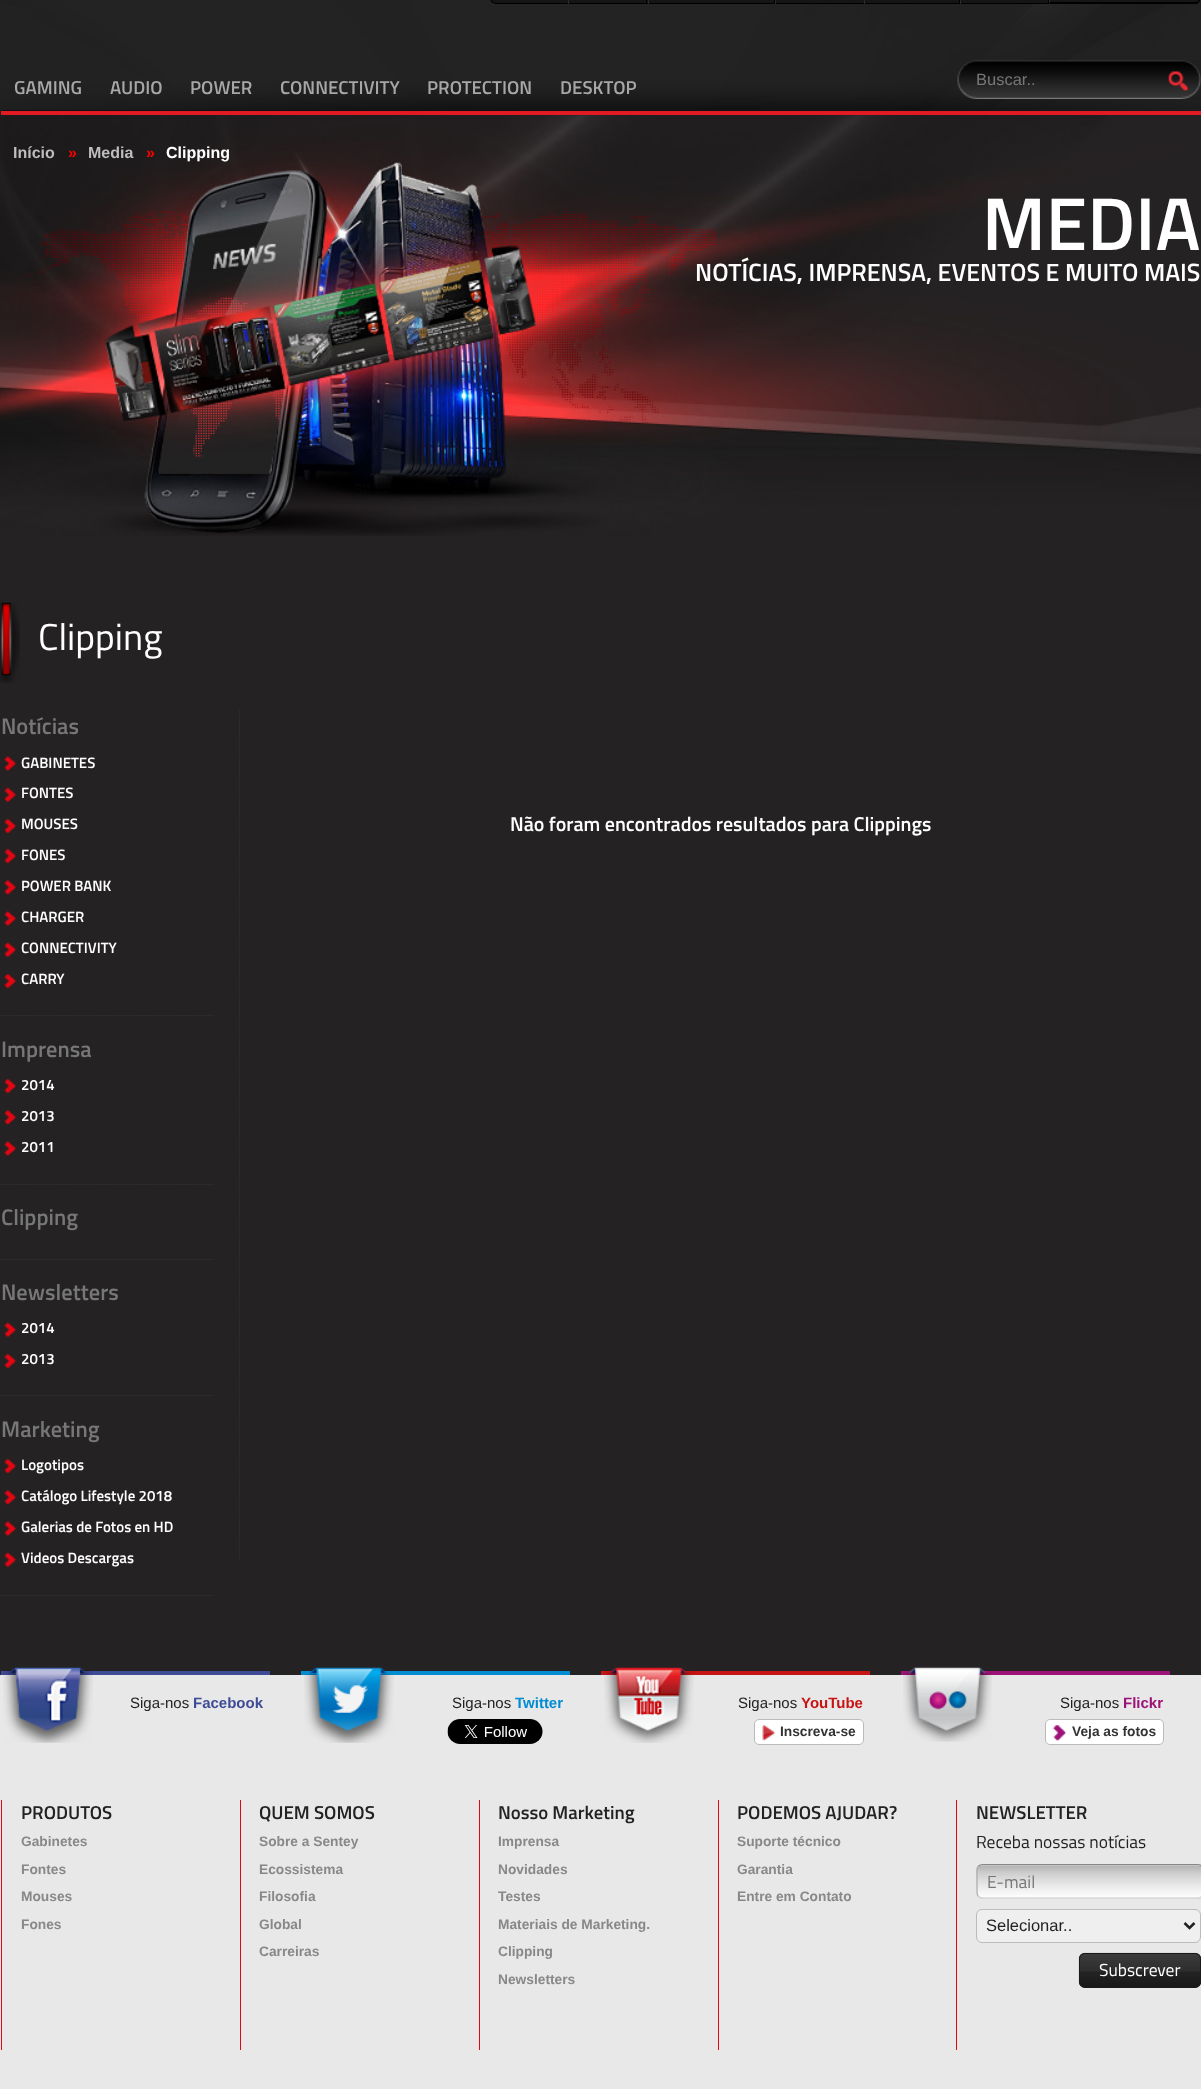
<svg xmlns="http://www.w3.org/2000/svg" width="1201" height="2089" viewBox="0 0 1201 2089">
  <rect width="100%" height="100%" fill="rgb(36,34,35)"/>
  <image x="0" y="115" width="1201" height="421" href="pic5.png"/>
  <image x="0" y="0" width="1201" height="116" href="pic1.png"/>
  <rect x="491" y="0" width="76" height="3" fill="rgb(21,21,21)"/>
  <path d="M496-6.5H567.5V3.5H496C493 3.5 490.5 1 490.5-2V-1C490.5-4 493-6.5 496-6.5Z" fill="none" stroke="rgb(0,0,0)"/>
  <rect x="567" y="0" width="482" height="3" fill="rgb(21,21,21)"/>
  <rect x="646" y="0" width="1" height="4" fill="rgb(0,0,0)"/>
  <rect x="568" y="3" width="80" height="1" fill="rgb(0,0,0)"/>
  <rect x="568" y="0" width="1" height="4" fill="rgb(42,42,42)"/>
  <rect x="774" y="0" width="1" height="4" fill="rgb(0,0,0)"/>
  <rect x="648" y="3" width="216" height="1" fill="rgb(0,0,0)"/>
  <rect x="648" y="0" width="1" height="4" fill="rgb(42,42,42)"/>
  <rect x="775" y="0" width="1" height="4" fill="rgb(42,42,42)"/>
  <rect x="959" y="0" width="1" height="4" fill="rgb(0,0,0)"/>
  <rect x="864" y="3" width="96" height="1" fill="rgb(0,0,0)"/>
  <rect x="864" y="0" width="1" height="4" fill="rgb(42,42,42)"/>
  <rect x="1048" y="0" width="1" height="4" fill="rgb(0,0,0)"/>
  <rect x="960" y="3" width="89" height="1" fill="rgb(0,0,0)"/>
  <rect x="960" y="0" width="1" height="4" fill="rgb(42,42,42)"/>
  <image x="1049" y="0" width="152" height="3" href="pic2.png"/>
  <path d="M1199-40C1200-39 1201-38 1201-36V-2C1201-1 1200 1 1199 2L1198 1C1199 0 1200-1 1200-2V-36C1200-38 1199-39 1198-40Z" fill="rgb(0,0,0)"/>
  <path d="M1049 4L1050 2H1195C1196 2 1198 2 1198 1L1199 2L1197 4Z" fill="rgb(0,0,0)"/>
  <path d="M1049-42V4L1050 2V-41Z" fill="rgb(42,42,42)"/>
  <rect x="1" y="111" width="1200" height="4" fill="rgb(227,26,35)"/>
  <path d="M96 111L95 110H2V111Z" fill="rgb(16,16,16)"/>
  <text x="14" y="94" font-family="Titillium Web" font-size="18.75" font-weight="600" fill="rgb(167,167,167)">GAMING</text>
  <path d="M176 111L175 110H98L96 111Z" fill="rgb(16,16,16)"/>
  <text x="110" y="94" font-family="Titillium Web" font-size="18.75" font-weight="600" fill="rgb(167,167,167)">AUDIO</text>
  <path d="M266 111L265 110H178L176 111Z" fill="rgb(16,16,16)"/>
  <text x="190" y="94" font-family="Titillium Web" font-size="18.75" font-weight="600" fill="rgb(167,167,167)">POWER</text>
  <path d="M414 111H266L268 110H412Z" fill="rgb(16,16,16)"/>
  <text x="280" y="94" font-family="Titillium Web" font-size="18.75" font-weight="600" fill="rgb(167,167,167)">CONNECTIVITY</text>
  <path d="M546 111L545 110H415L414 111Z" fill="rgb(16,16,16)"/>
  <g font-family="Titillium Web" font-size="18.75" font-weight="600" fill="rgb(167,167,167)">
    <text x="427" y="94">PROTECTION</text>
    <text x="560" y="94">DESKTOP</text>
  </g>
  <image x="957" y="60" width="244" height="39" href="pic3.png"/>
  <text x="976" y="85" font-family="Liberation Sans" font-size="16.5" fill="rgb(119,119,119)">Buscar..</text>
  <image x="1168" y="71" width="20" height="20" href="pic4.png"/>
  <text x="13" y="158" font-family="Liberation Sans" font-size="16" font-weight="bold" fill="rgb(190,190,190)">Início</text>
  <text x="68" y="158" font-family="Liberation Sans" font-size="16" font-weight="bold" fill="rgb(255,0,0)">»</text>
  <text x="88" y="158" font-family="Liberation Sans" font-size="16" font-weight="bold" fill="rgb(190,190,190)">Media</text>
  <text x="146" y="158" font-family="Liberation Sans" font-size="16" font-weight="bold" fill="rgb(255,0,0)">»</text>
  <text x="166" y="158" font-family="Liberation Sans" font-size="16" font-weight="bold" fill="rgb(255,255,255)">Clipping</text>
  <text x="982" y="250" font-family="Titillium Web" font-size="75" font-weight="600" fill="rgb(255,255,255)">MEDIA</text>
  <text x="695" y="281" font-family="Titillium Web" font-size="25" font-weight="600" fill="rgb(255,255,255)">NOTÍCIAS, IMPRENSA, EVENTOS E MUITO MAIS</text>
  <image x="0" y="602" width="20" height="81" href="pic6.png"/>
  <text x="38" y="650" font-family="Titillium Web" font-size="37.5" fill="rgb(255,255,255)">Clipping</text>
  <text x="1" y="734" font-family="Titillium Web" font-size="22.5" font-weight="600" fill="rgb(119,119,119)">Notícias</text>
  <path d="M1 1015.5H214" fill="none" stroke="rgb(51,51,51)" stroke-width="1.2" stroke-dasharray="1.25 1.25"/>
  <image x="3" y="756" width="14" height="16" href="pic7.png"/>
  <text x="21" y="768" font-family="Titillium Web" font-size="15" font-weight="600" fill="rgb(255,255,255)">GABINETES</text>
  <image x="3" y="787" width="14" height="16" href="pic8.png"/>
  <text x="21" y="798" font-family="Titillium Web" font-size="15" font-weight="600" fill="rgb(255,255,255)">FONTES</text>
  <image x="3" y="818" width="14" height="16" href="pic9.png"/>
  <text x="21" y="829" font-family="Titillium Web" font-size="15" font-weight="600" fill="rgb(255,255,255)">MOUSES</text>
  <image x="3" y="848" width="14" height="16" href="pic9.png"/>
  <text x="21" y="860" font-family="Titillium Web" font-size="15" font-weight="600" fill="rgb(255,255,255)">FONES</text>
  <image x="3" y="880" width="14" height="16" href="pic10.png"/>
  <text x="21" y="891" font-family="Titillium Web" font-size="15" font-weight="600" fill="rgb(255,255,255)">POWER BANK</text>
  <image x="3" y="911" width="14" height="16" href="pic7.png"/>
  <text x="21" y="922" font-family="Titillium Web" font-size="15" font-weight="600" fill="rgb(255,255,255)">CHARGER</text>
  <image x="3" y="942" width="14" height="16" href="pic8.png"/>
  <text x="21" y="953" font-family="Titillium Web" font-size="15" font-weight="600" fill="rgb(255,255,255)">CONNECTIVITY</text>
  <image x="3" y="973" width="14" height="16" href="pic9.png"/>
  <text x="21" y="984" font-family="Titillium Web" font-size="15" font-weight="600" fill="rgb(255,255,255)">CARRY</text>
  <text x="1" y="1057" font-family="Titillium Web" font-size="22.5" font-weight="600" fill="rgb(119,119,119)">Imprensa</text>
  <path d="M1 1184.5H214" fill="none" stroke="rgb(51,51,51)" stroke-width="1.2" stroke-dasharray="1.25 1.25"/>
  <image x="3" y="1078" width="14" height="16" href="pic9.png"/>
  <text x="21" y="1090" font-family="Titillium Web" font-size="15" font-weight="600" fill="rgb(255,255,255)">2014</text>
  <image x="3" y="1110" width="14" height="16" href="pic10.png"/>
  <text x="21" y="1121" font-family="Titillium Web" font-size="15" font-weight="600" fill="rgb(255,255,255)">2013</text>
  <image x="3" y="1141" width="14" height="16" href="pic7.png"/>
  <text x="21" y="1152" font-family="Titillium Web" font-size="15" font-weight="600" fill="rgb(255,255,255)">2011</text>
  <text x="1" y="1225" font-family="Titillium Web" font-size="22.5" font-weight="600" fill="rgb(119,119,119)">Clipping</text>
  <path d="M1 1259.5H214" fill="none" stroke="rgb(51,51,51)" stroke-width="1.2" stroke-dasharray="1.25 1.25"/>
  <text x="1" y="1300" font-family="Titillium Web" font-size="22.5" font-weight="600" fill="rgb(119,119,119)">Newsletters</text>
  <path d="M1 1395.5H214" fill="none" stroke="rgb(51,51,51)" stroke-width="1.2" stroke-dasharray="1.25 1.25"/>
  <image x="3" y="1322" width="14" height="16" href="pic8.png"/>
  <text x="21" y="1333" font-family="Titillium Web" font-size="15" font-weight="600" fill="rgb(255,255,255)">2014</text>
  <image x="3" y="1353" width="14" height="16" href="pic9.png"/>
  <text x="21" y="1364" font-family="Titillium Web" font-size="15" font-weight="600" fill="rgb(255,255,255)">2013</text>
  <text x="1" y="1437" font-family="Titillium Web" font-size="22.5" font-weight="600" fill="rgb(119,119,119)">Marketing</text>
  <path d="M1 1595.5H214" fill="none" stroke="rgb(51,51,51)" stroke-width="1.2" stroke-dasharray="1.25 1.25"/>
  <image x="3" y="1458" width="14" height="16" href="pic11.png"/>
  <text x="21" y="1470" font-family="Titillium Web" font-size="15" font-weight="600" fill="rgb(255,255,255)">Logotipos</text>
  <image x="3" y="1490" width="14" height="16" href="pic10.png"/>
  <text x="21" y="1501" font-family="Titillium Web" font-size="15" font-weight="600" fill="rgb(255,255,255)">Catálogo Lifestyle 2018</text>
  <image x="3" y="1521" width="14" height="16" href="pic7.png"/>
  <text x="21" y="1532" font-family="Titillium Web" font-size="15" font-weight="600" fill="rgb(255,255,255)">Galerias de Fotos en HD</text>
  <image x="3" y="1552" width="14" height="16" href="pic8.png"/>
  <text x="21" y="1563" font-family="Titillium Web" font-size="15" font-weight="600" fill="rgb(255,255,255)">Videos Descargas</text>
  <path d="M239.5 710V1560" fill="none" stroke="rgb(51,51,51)" stroke-width="1.2" stroke-dasharray="1.25 1.25"/>
  <text x="510" y="831" font-family="Titillium Web" font-size="20" font-weight="600" fill="rgb(255,255,255)">Não foram encontrados resultados para Clippings</text>
  <rect x="0" y="1675" width="1201" height="414" fill="rgb(232,232,232)"/>
  <rect x="1" y="1671" width="269" height="4" fill="rgb(62,75,151)"/>
  <image x="3" y="1667" width="90" height="76" href="pic12.png"/>
  <text x="130" y="1708" font-family="Liberation Sans" font-size="15" fill="rgb(34,34,34)">Siga-nos</text>
  <text x="193" y="1708" font-family="Liberation Sans" font-size="15" font-weight="bold" fill="rgb(62,75,151)">Facebook</text>
  <rect x="301" y="1671" width="269" height="4" fill="rgb(0,140,210)"/>
  <image x="304" y="1667" width="90" height="76" href="pic13.png"/>
  <text x="452" y="1708" font-family="Liberation Sans" font-size="15" fill="rgb(34,34,34)">Siga-nos</text>
  <text x="515" y="1708" font-family="Liberation Sans" font-size="15" font-weight="bold" fill="rgb(0,140,210)">Twitter</text>
  <image x="447" y="1719" width="96" height="25" href="pic14.png"/>
  <rect x="601" y="1671" width="269" height="4" fill="rgb(199,20,21)"/>
  <image x="604" y="1667" width="90" height="76" href="pic15.png"/>
  <text x="738" y="1708" font-family="Liberation Sans" font-size="15" fill="rgb(34,34,34)">Siga-nos</text>
  <text x="801" y="1708" font-family="Liberation Sans" font-size="15" font-weight="bold" fill="rgb(199,20,21)">YouTube</text>
  <rect x="754.5" y="1719.5" width="109" height="25" rx="4.5" fill="rgb(255,255,255)" stroke="rgb(187,187,187)"/>
  <image x="762" y="1725" width="14" height="16" href="pic16.png"/>
  <text x="780" y="1736" font-family="Liberation Sans" font-size="13.75" font-weight="bold" fill="rgb(51,51,51)">Inscreva-se</text>
  <rect x="901" y="1671" width="269" height="4" fill="rgb(156,18,119)"/>
  <image x="903" y="1667" width="89" height="75" href="pic17.png"/>
  <text x="1060" y="1708" font-family="Liberation Sans" font-size="15" fill="rgb(34,34,34)">Siga-nos</text>
  <text x="1123" y="1708" font-family="Liberation Sans" font-size="15" font-weight="bold" fill="rgb(156,18,119)">Flickr</text>
  <rect x="1045.5" y="1719.5" width="118" height="25" rx="4.5" fill="rgb(255,255,255)" stroke="rgb(187,187,187)"/>
  <image x="1052" y="1725" width="15" height="16" href="pic18.png"/>
  <text x="1072" y="1736" font-family="Liberation Sans" font-size="13.75" font-weight="bold" fill="rgb(51,51,51)">Veja as fotos</text>
  <rect x="1" y="1800" width="1" height="250" fill="rgb(227,6,19)"/>
  <text x="21" y="1819" font-family="Titillium Web" font-size="18.75" font-weight="600" fill="rgb(34,34,34)">PRODUTOS</text>
  <g font-family="Liberation Sans" font-size="13.75" font-weight="bold" fill="rgb(136,136,136)">
    <text x="21" y="1846">Gabinetes</text>
    <text>
      <tspan x="21" y="1874">Fontes</tspan>
      <tspan x="21" y="1901">Mouses</tspan>
    </text>
    <text x="21" y="1929">Fones</text>
  </g>
  <rect x="240" y="1800" width="1" height="250" fill="rgb(227,6,19)"/>
  <text x="259" y="1819" font-family="Titillium Web" font-size="18.75" font-weight="600" fill="rgb(34,34,34)">QUEM SOMOS</text>
  <g font-family="Liberation Sans" font-size="13.75" font-weight="bold" fill="rgb(136,136,136)">
    <text x="259" y="1846">Sobre a Sentey</text>
    <text>
      <tspan x="259" y="1874">Ecossistema</tspan>
      <tspan x="259" y="1901">Filosofia</tspan>
    </text>
    <text>
      <tspan x="259" y="1929">Global</tspan>
      <tspan x="259" y="1956">Carreiras</tspan>
    </text>
  </g>
  <rect x="479" y="1800" width="1" height="250" fill="rgb(227,6,19)"/>
  <text x="498" y="1819" font-family="Titillium Web" font-size="18.75" font-weight="600" fill="rgb(34,34,34)">Nosso Marketing</text>
  <g font-family="Liberation Sans" font-size="13.75" font-weight="bold" fill="rgb(136,136,136)">
    <text x="498" y="1846">Imprensa</text>
    <text>
      <tspan x="498" y="1874">Novidades</tspan>
      <tspan x="498" y="1901">Testes</tspan>
    </text>
    <text>
      <tspan x="498" y="1929">Materiais de Marketing.</tspan>
      <tspan x="498" y="1956">Clipping</tspan>
    </text>
    <text x="498" y="1984">Newsletters</text>
  </g>
  <rect x="718" y="1800" width="1" height="250" fill="rgb(227,6,19)"/>
  <text x="737" y="1819" font-family="Titillium Web" font-size="18.75" font-weight="600" fill="rgb(34,34,34)">PODEMOS AJUDAR?</text>
  <g font-family="Liberation Sans" font-size="13.75" font-weight="bold" fill="rgb(136,136,136)">
    <text x="737" y="1846">Suporte técnico</text>
    <text>
      <tspan x="737" y="1874">Garantia</tspan>
      <tspan x="737" y="1901">Entre em Contato</tspan>
    </text>
  </g>
  <rect x="956" y="1800" width="1" height="250" fill="rgb(227,6,19)"/>
  <text x="976" y="1819" font-family="Titillium Web" font-size="18.75" font-weight="600" fill="rgb(34,34,34)">NEWSLETTER</text>
  <text x="976" y="1848" font-family="Titillium Web" font-size="17.5" fill="rgb(34,34,34)">Receba nossas notícias</text>
  <image x="976" y="1865" width="225" height="33" href="pic19.png"/>
  <path d="M978.5 1866C979.5 1865 981 1864.5 982.5 1864.5H1197.5C1199 1864.5 1200.5 1865 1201.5 1866" fill="none" stroke="rgb(135,135,135)" stroke-width="1.2"/>
  <path d="M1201.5 1896.5C1200.5 1897.5 1199 1898 1197.5 1898H982.5C981 1898 979.5 1897.5 978.5 1896.5" fill="none" stroke="rgb(204,204,204)" stroke-width="1.2"/>
  <path d="M978.5 1896.5C977.5 1895.5 977 1894 977 1892.5V1870C977 1868.5 977.5 1867 978.5 1866" fill="none" stroke="rgb(170,170,170)" stroke-width="1.2"/>
  <text x="987" y="1888" font-family="Titillium Web" font-size="17.5" fill="rgb(119,119,119)">E-mail</text>
  <rect x="976.5" y="1909.5" width="224" height="33" rx="5.5" fill="rgb(239,239,239)" stroke="rgb(187,187,187)"/>
  <path d="M1184.5 1923L1189.5 1928L1194.5 1923" fill="none" stroke="rgb(34,34,34)" stroke-width="2.5"/>
  <text x="986" y="1931" font-family="Liberation Sans" font-size="16.5" fill="rgb(34,34,34)">Selecionar..</text>
  <image x="1078" y="1952" width="123" height="36" href="pic20.png"/>
  <rect x="1079.5" y="1953.5" width="121" height="34" rx="5.5" fill="none" stroke="rgb(26,26,26)"/>
  <text x="1099" y="1976" font-family="Titillium Web" font-size="17.5" fill="rgb(255,255,255)">Subscrever</text>
</svg>
